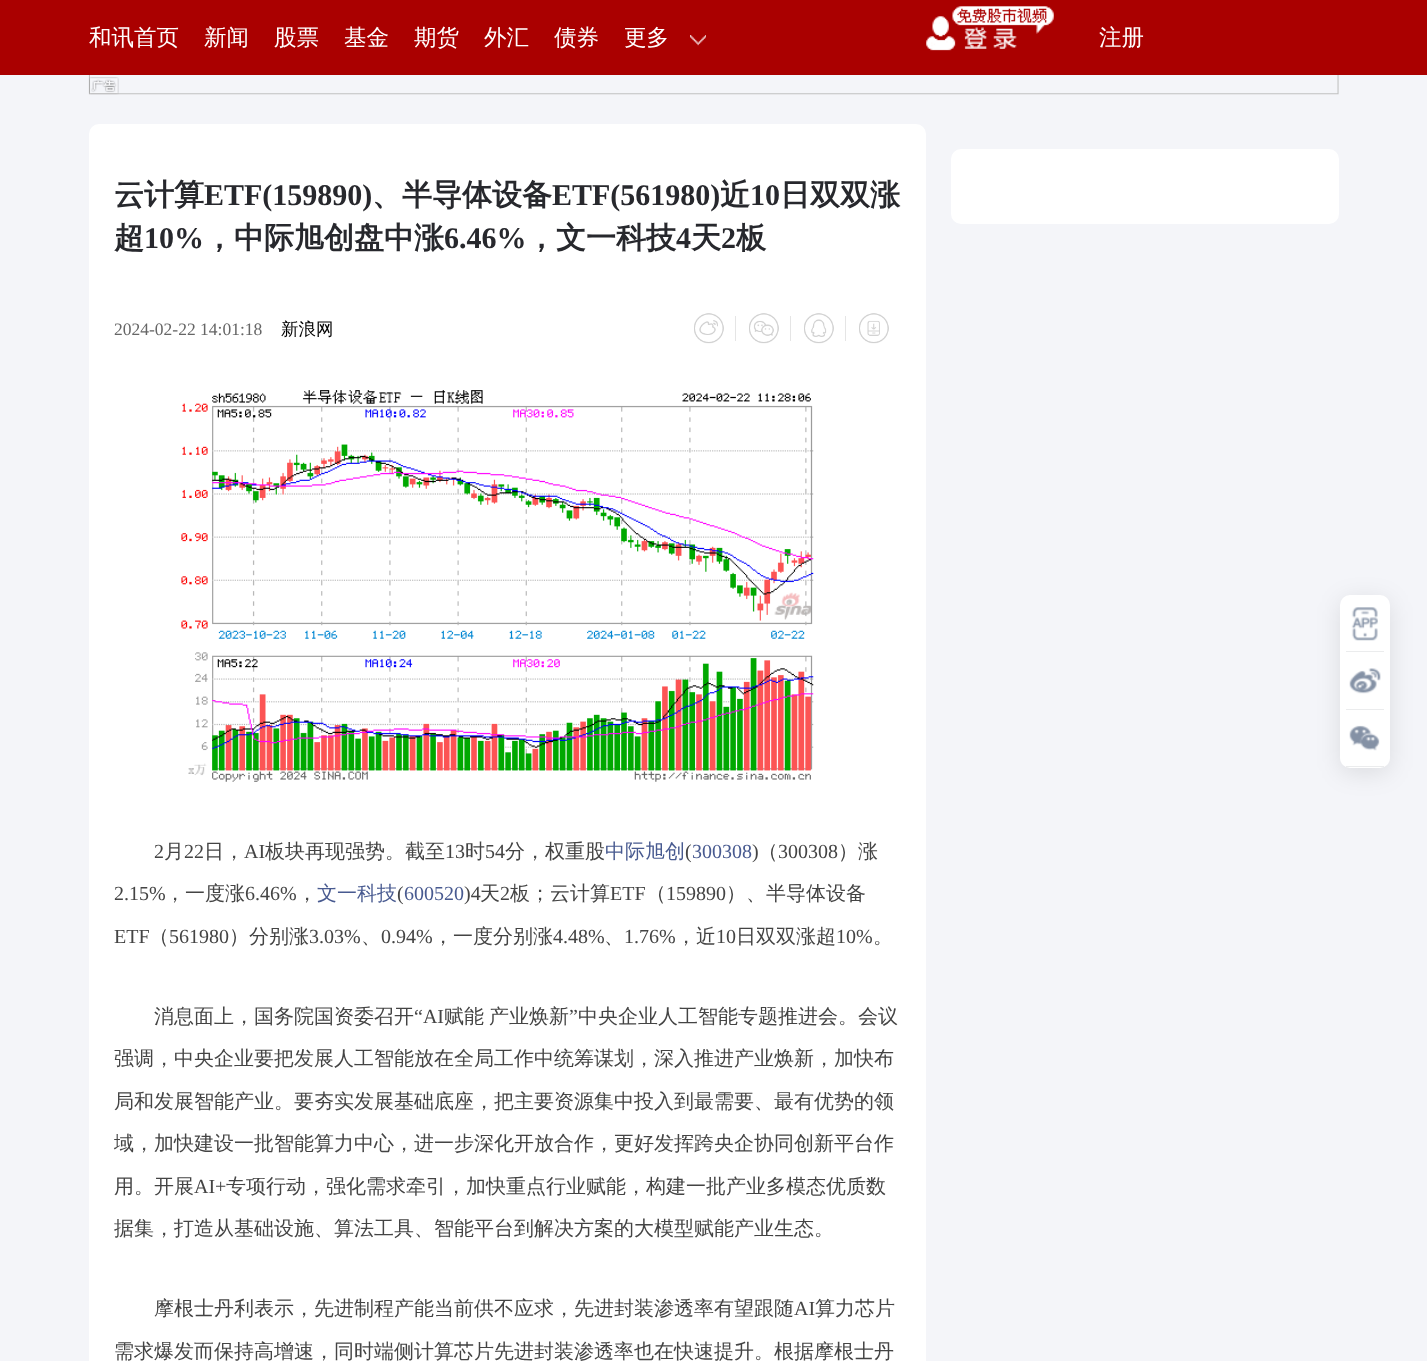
<svg xmlns="http://www.w3.org/2000/svg" width="1427" height="1361" viewBox="0 0 1427 1361">
  <rect width="100%" height="100%" fill="rgb(244,245,249)"/>
  <rect x="0" y="0" width="1427" height="75" fill="rgb(170,0,0)"/>
  <g font-family="WenQuanYi Zen Hei" font-size="22.5" font-weight="500" fill="rgb(255,255,255)">
    <text x="89" y="45">和讯首页</text>
    <text x="204" y="45">新闻</text>
    <text x="274" y="45">股票</text>
    <text x="344" y="45">基金</text>
    <text x="414" y="45">期货</text>
    <text x="484" y="45">外汇</text>
    <text x="554" y="45">债券</text>
  </g>
  <image x="690" y="35" width="16" height="11" href="pic1.png"/>
  <text x="624" y="45" font-family="WenQuanYi Zen Hei" font-size="22.5" font-weight="500" fill="rgb(255,255,255)">更多</text>
  <image x="926" y="6" width="128" height="45" href="pic2.png"/>
  <text x="1099" y="45" font-family="WenQuanYi Zen Hei" font-size="22.5" font-weight="500" fill="rgb(255,255,255)">注册</text>
  <image x="88" y="75" width="1251" height="20" href="pic3.png"/>
  <rect x="89" y="124" width="837" height="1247" rx="10" fill="rgb(255,255,255)"/>
  <text x="114" y="205" font-family="WenQuanYi Zen Hei" font-size="30" font-weight="bold" fill="rgb(39,40,45)">云计算</text>
  <text x="204" y="205" font-family="Liberation Serif" font-size="30" font-weight="bold" fill="rgb(39,40,45)">ETF(159890)</text>
  <text x="372" y="205" font-family="WenQuanYi Zen Hei" font-size="30" font-weight="bold" fill="rgb(39,40,45)">、半导体设备</text>
  <text x="552" y="205" font-family="Liberation Serif" font-size="30" font-weight="bold" fill="rgb(39,40,45)">ETF(561980)</text>
  <text x="720" y="205" font-family="WenQuanYi Zen Hei" font-size="30" font-weight="bold" fill="rgb(39,40,45)">近</text>
  <text x="750" y="205" font-family="Liberation Serif" font-size="30" font-weight="bold" fill="rgb(39,40,45)">10</text>
  <g font-family="WenQuanYi Zen Hei" font-size="30" font-weight="bold" fill="rgb(39,40,45)">
    <text x="780" y="205">日双双涨</text>
    <text x="114" y="248">超</text>
  </g>
  <text x="144" y="248" font-family="Liberation Serif" font-size="30" font-weight="bold" fill="rgb(39,40,45)">10%</text>
  <text x="204" y="248" font-family="WenQuanYi Zen Hei" font-size="30" font-weight="bold" fill="rgb(39,40,45)">，中际旭创盘中涨</text>
  <text x="444" y="248" font-family="Liberation Serif" font-size="30" font-weight="bold" fill="rgb(39,40,45)">6.46%</text>
  <text x="526" y="248" font-family="WenQuanYi Zen Hei" font-size="30" font-weight="bold" fill="rgb(39,40,45)">，文一科技</text>
  <text x="676" y="248" font-family="Liberation Serif" font-size="30" font-weight="bold" fill="rgb(39,40,45)">4</text>
  <text x="691" y="248" font-family="WenQuanYi Zen Hei" font-size="30" font-weight="bold" fill="rgb(39,40,45)">天</text>
  <text x="721" y="248" font-family="Liberation Serif" font-size="30" font-weight="bold" fill="rgb(39,40,45)">2</text>
  <text x="736" y="248" font-family="WenQuanYi Zen Hei" font-size="30" font-weight="bold" fill="rgb(39,40,45)">板</text>
  <text x="114" y="335" font-family="Liberation Serif" font-size="17.5" fill="rgb(102,102,102)">2024-02-22 14:01:18</text>
  <text x="281" y="335" font-family="WenQuanYi Zen Hei" font-size="17.5" font-weight="500" fill="rgb(0,0,0)">新浪网</text>
  <image x="694" y="313" width="30" height="31" href="pic4.png"/>
  <rect x="735" y="316" width="1" height="25" fill="rgb(229,229,229)"/>
  <image x="749" y="313" width="30" height="31" href="pic5.png"/>
  <rect x="790" y="316" width="1" height="25" fill="rgb(229,229,229)"/>
  <image x="804" y="313" width="30" height="31" href="pic6.png"/>
  <rect x="845" y="316" width="1" height="25" fill="rgb(229,229,229)"/>
  <image x="859" y="313" width="30" height="31" href="pic7.png"/>
  <image x="181" y="390" width="633" height="392" href="pic8.png"/>
  <text x="154" y="858" font-family="Liberation Serif" font-size="20" fill="rgb(68,68,68)">2</text>
  <text x="164" y="858" font-family="WenQuanYi Zen Hei" font-size="20" font-weight="500" fill="rgb(68,68,68)">月</text>
  <text x="184" y="858" font-family="Liberation Serif" font-size="20" fill="rgb(68,68,68)">22</text>
  <text x="204" y="858" font-family="WenQuanYi Zen Hei" font-size="20" font-weight="500" fill="rgb(68,68,68)">日，</text>
  <text x="244" y="858" font-family="Liberation Serif" font-size="20" fill="rgb(68,68,68)">AI</text>
  <text x="265" y="858" font-family="WenQuanYi Zen Hei" font-size="20" font-weight="500" fill="rgb(68,68,68)">板块再现强势。截至</text>
  <text x="445" y="858" font-family="Liberation Serif" font-size="20" fill="rgb(68,68,68)">13</text>
  <text x="465" y="858" font-family="WenQuanYi Zen Hei" font-size="20" font-weight="500" fill="rgb(68,68,68)">时</text>
  <text x="485" y="858" font-family="Liberation Serif" font-size="20" fill="rgb(68,68,68)">54</text>
  <text x="505" y="858" font-family="WenQuanYi Zen Hei" font-size="20" font-weight="500" fill="rgb(68,68,68)">分，权重股</text>
  <text x="605" y="858" font-family="WenQuanYi Zen Hei" font-size="20" font-weight="500" fill="rgb(72,90,144)">中际旭创</text>
  <text x="685" y="858" font-family="Liberation Serif" font-size="20" fill="rgb(68,68,68)">(</text>
  <text x="692" y="858" font-family="Liberation Serif" font-size="20" fill="rgb(72,90,144)">300308</text>
  <text x="752" y="858" font-family="Liberation Serif" font-size="20" fill="rgb(68,68,68)">)</text>
  <text x="758" y="858" font-family="WenQuanYi Zen Hei" font-size="20" font-weight="500" fill="rgb(68,68,68)">（</text>
  <text x="778" y="858" font-family="Liberation Serif" font-size="20" fill="rgb(68,68,68)">300308</text>
  <text x="838" y="858" font-family="WenQuanYi Zen Hei" font-size="20" font-weight="500" fill="rgb(68,68,68)">）涨</text>
  <text x="114" y="900" font-family="Liberation Serif" font-size="20" fill="rgb(68,68,68)">2.15%</text>
  <text x="165" y="900" font-family="WenQuanYi Zen Hei" font-size="20" font-weight="500" fill="rgb(68,68,68)">，一度涨</text>
  <text x="245" y="900" font-family="Liberation Serif" font-size="20" fill="rgb(68,68,68)">6.46%</text>
  <text x="297" y="900" font-family="WenQuanYi Zen Hei" font-size="20" font-weight="500" fill="rgb(68,68,68)">，</text>
  <text x="317" y="900" font-family="WenQuanYi Zen Hei" font-size="20" font-weight="500" fill="rgb(72,90,144)">文一科技</text>
  <text x="397" y="900" font-family="Liberation Serif" font-size="20" fill="rgb(68,68,68)">(</text>
  <text x="404" y="900" font-family="Liberation Serif" font-size="20" fill="rgb(72,90,144)">600520</text>
  <text x="464" y="900" font-family="Liberation Serif" font-size="20" fill="rgb(68,68,68)">)4</text>
  <text x="480" y="900" font-family="WenQuanYi Zen Hei" font-size="20" font-weight="500" fill="rgb(68,68,68)">天</text>
  <text x="500" y="900" font-family="Liberation Serif" font-size="20" fill="rgb(68,68,68)">2</text>
  <text x="510" y="900" font-family="WenQuanYi Zen Hei" font-size="20" font-weight="500" fill="rgb(68,68,68)">板；云计算</text>
  <text x="610" y="900" font-family="Liberation Serif" font-size="20" fill="rgb(68,68,68)">ETF</text>
  <text x="646" y="900" font-family="WenQuanYi Zen Hei" font-size="20" font-weight="500" fill="rgb(68,68,68)">（</text>
  <text x="666" y="900" font-family="Liberation Serif" font-size="20" fill="rgb(68,68,68)">159890</text>
  <text x="726" y="900" font-family="WenQuanYi Zen Hei" font-size="20" font-weight="500" fill="rgb(68,68,68)">）、半导体设备</text>
  <text x="114" y="943" font-family="Liberation Serif" font-size="20" fill="rgb(68,68,68)">ETF</text>
  <text x="149" y="943" font-family="WenQuanYi Zen Hei" font-size="20" font-weight="500" fill="rgb(68,68,68)">（</text>
  <text x="169" y="943" font-family="Liberation Serif" font-size="20" fill="rgb(68,68,68)">561980</text>
  <text x="229" y="943" font-family="WenQuanYi Zen Hei" font-size="20" font-weight="500" fill="rgb(68,68,68)">）分别涨</text>
  <text x="309" y="943" font-family="Liberation Serif" font-size="20" fill="rgb(68,68,68)">3.03%</text>
  <text x="361" y="943" font-family="WenQuanYi Zen Hei" font-size="20" font-weight="500" fill="rgb(68,68,68)">、</text>
  <text x="381" y="943" font-family="Liberation Serif" font-size="20" fill="rgb(68,68,68)">0.94%</text>
  <text x="433" y="943" font-family="WenQuanYi Zen Hei" font-size="20" font-weight="500" fill="rgb(68,68,68)">，一度分别涨</text>
  <text x="553" y="943" font-family="Liberation Serif" font-size="20" fill="rgb(68,68,68)">4.48%</text>
  <text x="604" y="943" font-family="WenQuanYi Zen Hei" font-size="20" font-weight="500" fill="rgb(68,68,68)">、</text>
  <text x="624" y="943" font-family="Liberation Serif" font-size="20" fill="rgb(68,68,68)">1.76%</text>
  <text x="676" y="943" font-family="WenQuanYi Zen Hei" font-size="20" font-weight="500" fill="rgb(68,68,68)">，近</text>
  <text x="716" y="943" font-family="Liberation Serif" font-size="20" fill="rgb(68,68,68)">10</text>
  <text x="736" y="943" font-family="WenQuanYi Zen Hei" font-size="20" font-weight="500" fill="rgb(68,68,68)">日双双涨超</text>
  <text x="836" y="943" font-family="Liberation Serif" font-size="20" fill="rgb(68,68,68)">10%</text>
  <g font-family="WenQuanYi Zen Hei" font-size="20" font-weight="500" fill="rgb(68,68,68)">
    <text x="873" y="943">。</text>
    <text x="154" y="1023">消息面上，国务院国资委召开</text>
  </g>
  <text x="414" y="1023" font-family="Liberation Serif" font-size="20" fill="rgb(68,68,68)">“AI</text>
  <text x="444" y="1023" word-spacing="-1" font-family="WenQuanYi Zen Hei" font-size="20" font-weight="500" fill="rgb(68,68,68)">赋能 产业焕新</text>
  <text x="569" y="1023" font-family="Liberation Serif" font-size="20" fill="rgb(68,68,68)">”</text>
  <g font-family="WenQuanYi Zen Hei" font-size="20" font-weight="500" fill="rgb(68,68,68)">
    <text x="578" y="1023">中央企业人工智能专题推进会。会议</text>
    <text x="114" y="1065">强调，中央企业要把发展人工智能放在全局工作中统筹谋划，深入推进产业焕新，加快布</text>
    <text x="114" y="1108">局和发展智能产业。要夯实发展基础底座，把主要资源集中投入到最需要、最有优势的领</text>
    <text x="114" y="1150">域，加快建设一批智能算力中心，进一步深化开放合作，更好发挥跨央企协同创新平台作</text>
    <text x="114" y="1193">用。开展</text>
  </g>
  <text x="194" y="1193" font-family="Liberation Serif" font-size="20" fill="rgb(68,68,68)">AI+</text>
  <g font-family="WenQuanYi Zen Hei" font-size="20" font-weight="500" fill="rgb(68,68,68)">
    <text x="226" y="1193">专项行动，强化需求牵引，加快重点行业赋能，构建一批产业多模态优质数</text>
    <text x="114" y="1235">据集，打造从基础设施、算法工具、智能平台到解决方案的大模型赋能产业生态。</text>
    <text x="154" y="1315">摩根士丹利表示，先进制程产能当前供不应求，先进封装渗透率有望跟随</text>
  </g>
  <text x="794" y="1315" font-family="Liberation Serif" font-size="20" fill="rgb(68,68,68)">AI</text>
  <g font-family="WenQuanYi Zen Hei" font-size="20" font-weight="500" fill="rgb(68,68,68)">
    <text x="815" y="1315">算力芯片</text>
    <text x="114" y="1358">需求爆发而保持高增速，同时端侧计算芯片先进封装渗透率也在快速提升。根据摩根士丹</text>
  </g>
  <rect x="951" y="149" width="388" height="75" rx="10" fill="rgb(255,255,255)"/>
  <rect x="1340" y="600" width="50" height="173" rx="10" fill="rgba(0,0,0,0.1)" filter="blur(12.5px)"/>
  <rect x="1340" y="595" width="50" height="173" rx="10" fill="rgb(255,255,255)"/>
  <image x="1351" y="607" width="27" height="34" href="pic9.png"/>
  <rect x="1346" y="651" width="38" height="1" fill="rgb(235,236,237)"/>
  <image x="1349" y="668" width="32" height="26" href="pic10.png"/>
  <rect x="1346" y="709" width="38" height="1" fill="rgb(235,236,237)"/>
  <image x="1349" y="725" width="31" height="26" href="pic11.png"/>
  <rect x="1346" y="766" width="38" height="1" fill="rgb(235,236,237)"/>
</svg>
